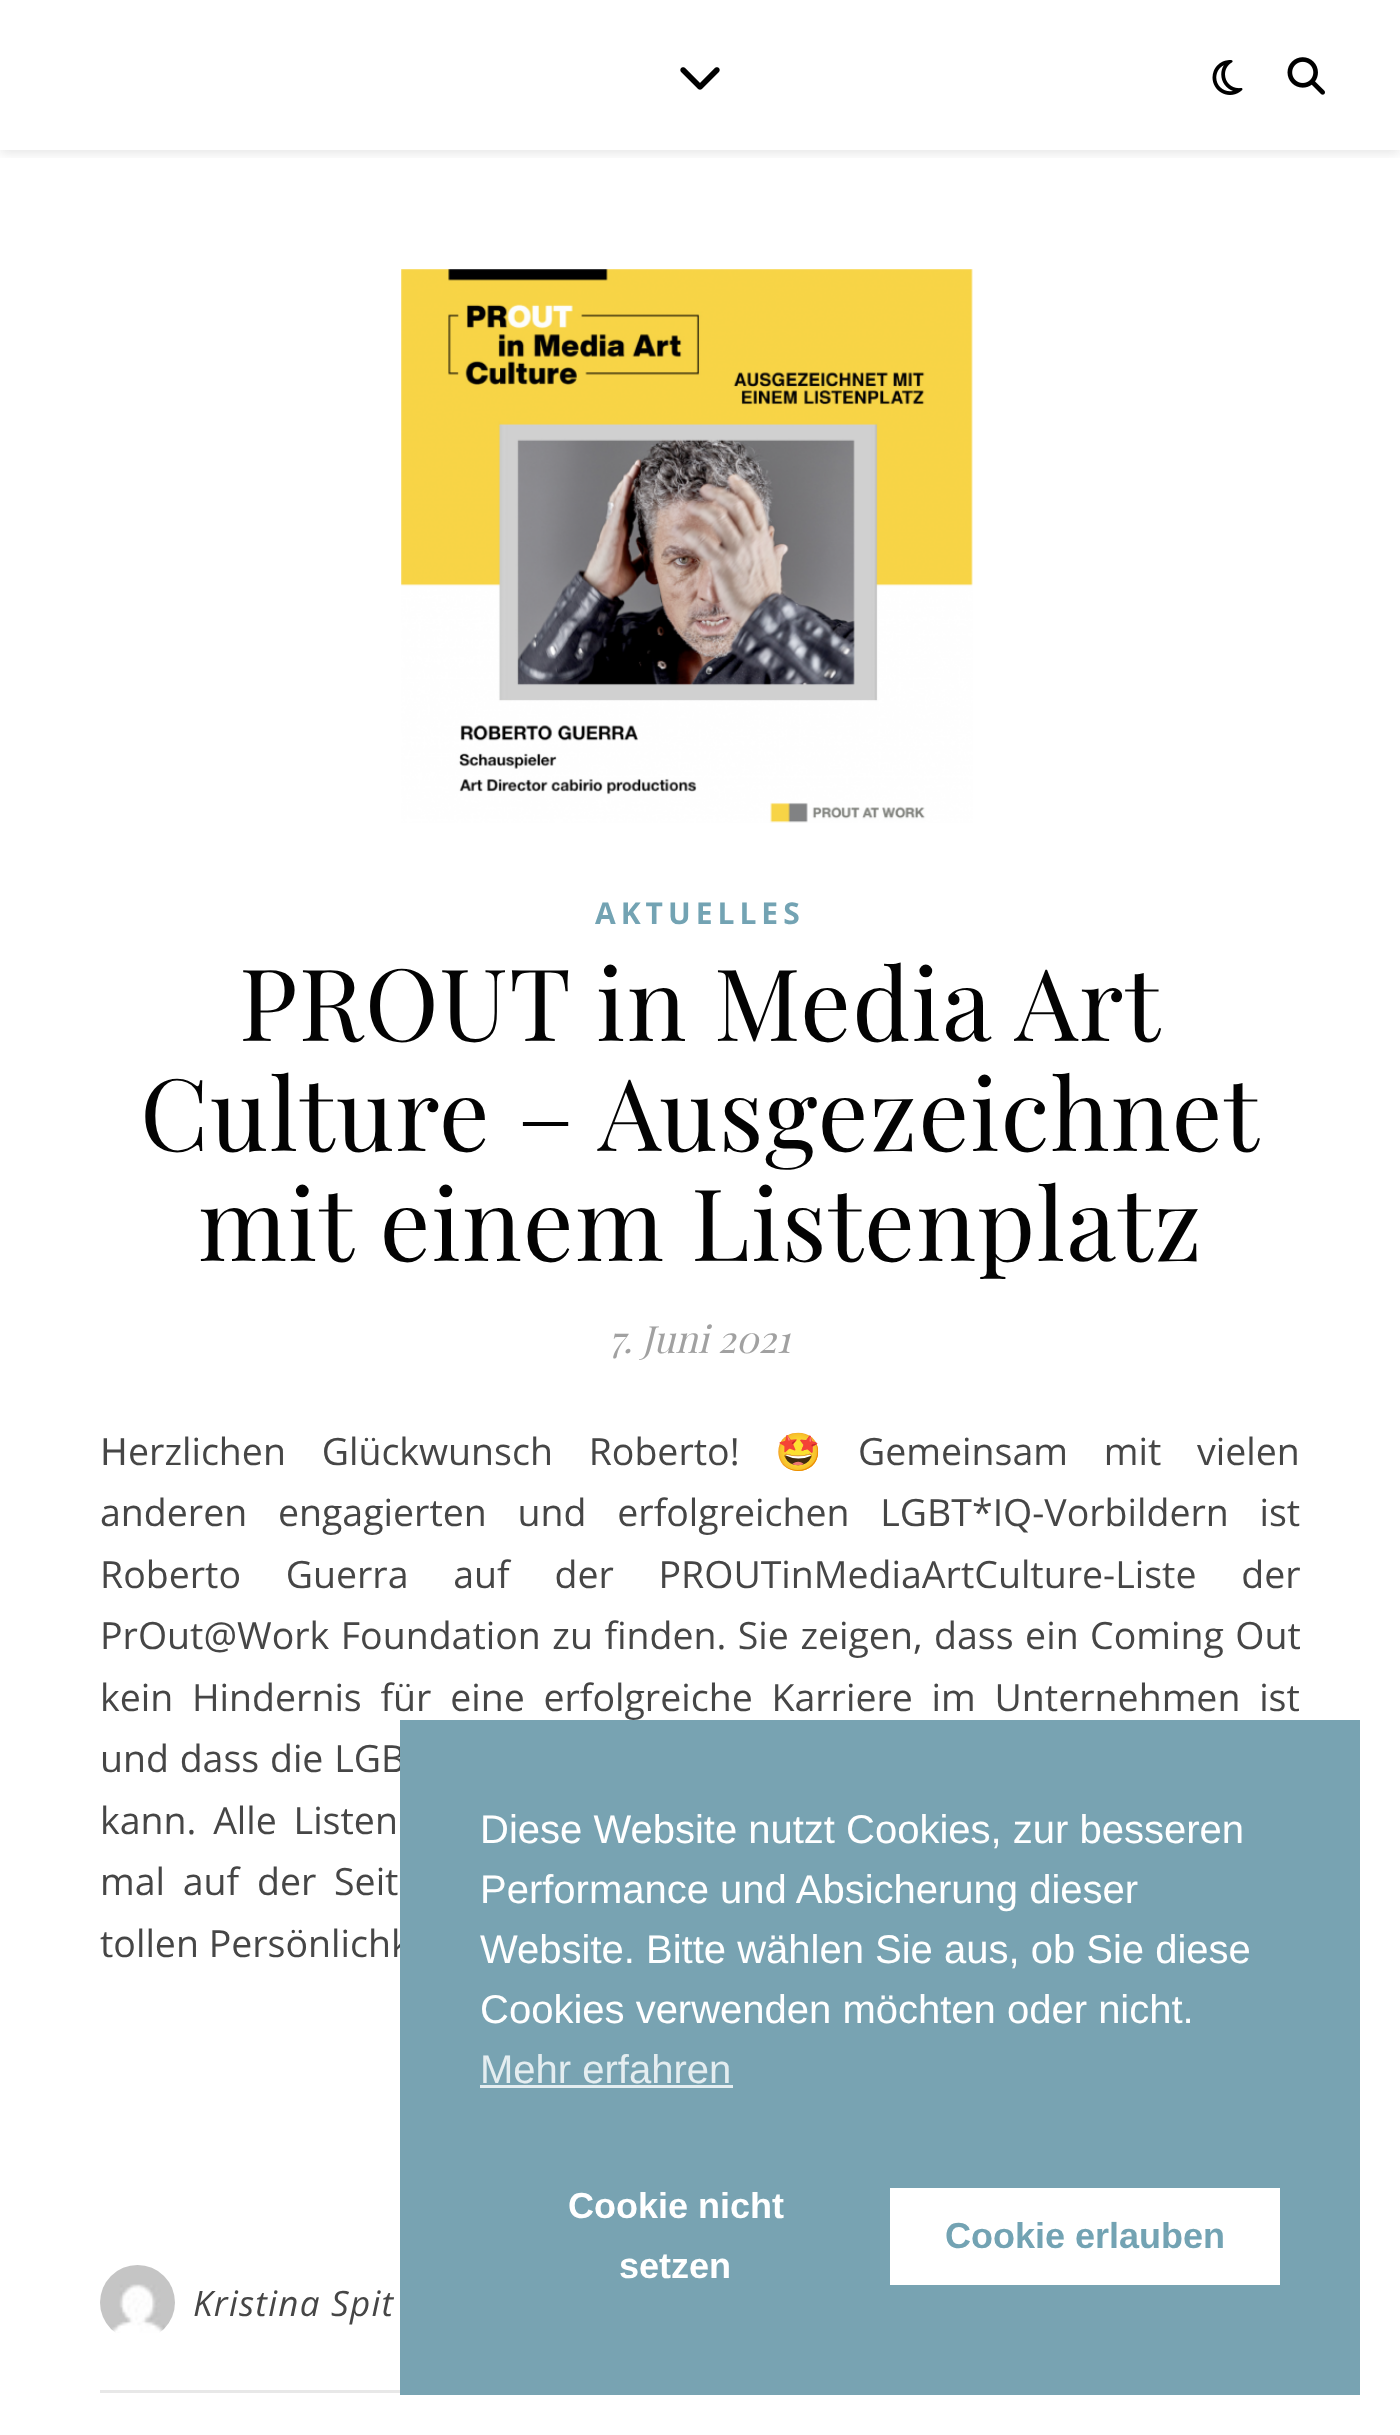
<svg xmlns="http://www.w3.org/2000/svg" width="1400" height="2435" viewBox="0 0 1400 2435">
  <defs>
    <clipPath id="clip1"><rect x="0" y="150" width="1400" height="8"/></clipPath>
  </defs>
  <rect width="100%" height="100%" fill="rgb(255,255,255)"/>
  <g clip-path="url(#clip1)">
    <rect x="0" y="3" width="1400" height="150" fill="rgba(0,0,0,0.1)" filter="blur(6px)"/>
  </g>
  <image x="680" y="67" width="40" height="23" href="pic1.png"/>
  <image x="1212" y="60" width="31" height="35" href="pic2.png"/>
  <image x="1287" y="57" width="38" height="38" href="pic3.png"/>
  <image x="401" y="269" width="572" height="554" href="pic4.png"/>
  <text x="595" y="924" font-family="Open Sans" font-size="30" font-weight="bold" letter-spacing="5" fill="rgb(115,163,179)">AKTUELLES</text>
  <g font-family="Playfair Display" font-size="100" letter-spacing="1.25" fill="rgb(3,3,3)">
    <text x="239" y="1041">PROUT in Media Art</text>
    <text x="140" y="1151">Culture – Ausgezeichnet</text>
    <text x="198" y="1261">mit einem Listenplatz</text>
  </g>
  <text x="609" y="1353" font-family="Playfair Display" font-size="37.5" font-style="italic" fill="rgb(161,161,161)">7. Juni 2021</text>
  <text x="100" y="1465" font-family="Noto Sans" font-size="37.5" fill="rgb(70,70,70)">H</text>
  <text x="128" y="1465" word-spacing="26" font-family="Open Sans" font-size="37.5" fill="rgb(70,70,70)">erzlichen Glückwunsch Roberto!</text>
  <text x="775" y="1465" font-family="Noto Color Emoji" font-size="37.5" fill="rgb(70,70,70)">🤩</text>
  <g font-family="Open Sans" font-size="37.5" fill="rgb(70,70,70)">
    <text x="858" y="1465" word-spacing="26">Gemeinsam mit vielen</text>
    <text>
      <tspan x="100" y="1526" word-spacing="21">anderen engagierten und erfolgreichen LGBT*IQ-Vorbildern ist</tspan>
      <tspan x="100" y="1588" word-spacing="35">Roberto Guerra auf der PROUTinMediaArtCulture-Liste der</tspan>
      <tspan x="100" y="1649" word-spacing="1.75">PrOut@Work Foundation zu finden. Sie zeigen, dass ein Coming Out</tspan>
      <tspan x="100" y="1711" word-spacing="9">kein Hindernis für eine erfolgreiche Karriere im Unternehmen ist</tspan>
      <tspan x="100" y="1772" word-spacing="1">und dass die LGB</tspan>
      <tspan x="100" y="1834" word-spacing="7">kann. Alle Listen</tspan>
      <tspan x="100" y="1895" word-spacing="8">mal auf der Seit</tspan>
      <tspan x="100" y="1957">tollen Persönlichk</tspan>
    </text>
  </g>
  <rect x="100" y="2390" width="300" height="3" fill="rgb(232,232,232)"/>
  <image x="100" y="2265" width="75" height="68" href="pic5.png"/>
  <text x="193" y="2316" font-family="Open Sans" font-size="35" font-style="italic" letter-spacing="1.25" fill="rgb(70,70,70)">Kristina Spit</text>
  <rect x="400" y="1720" width="960" height="675" fill="rgb(120,163,178)"/>
  <g font-family="Liberation Sans" font-size="40" fill="rgb(255,255,255)">
    <text>
      <tspan x="480" y="1843">Diese Website nutzt Cookies, zur besseren</tspan>
      <tspan x="480" y="1903">Performance und Absicherung dieser</tspan>
      <tspan x="480" y="1963">Website. Bitte wählen Sie aus, ob Sie diese</tspan>
      <tspan x="480" y="2023">Cookies verwenden möchten oder nicht.</tspan>
    </text>
  </g>
  <text x="480" y="2083" font-family="Liberation Sans" font-size="40" fill="rgb(228,237,240)">Mehr erfahren</text>
  <rect x="480" y="2085" width="253" height="3" fill="rgb(228,237,240)"/>
  <g font-family="Liberation Sans" font-size="36" font-weight="bold" fill="rgb(255,255,255)">
    <text x="568" y="2218">Cookie nicht</text>
    <text x="619" y="2278">setzen</text>
  </g>
  <rect x="890" y="2188" width="390" height="97" fill="rgb(255,255,255)"/>
  <text x="945" y="2248" font-family="Liberation Sans" font-size="36" font-weight="bold" fill="rgb(115,163,179)">Cookie erlauben</text>
</svg>
